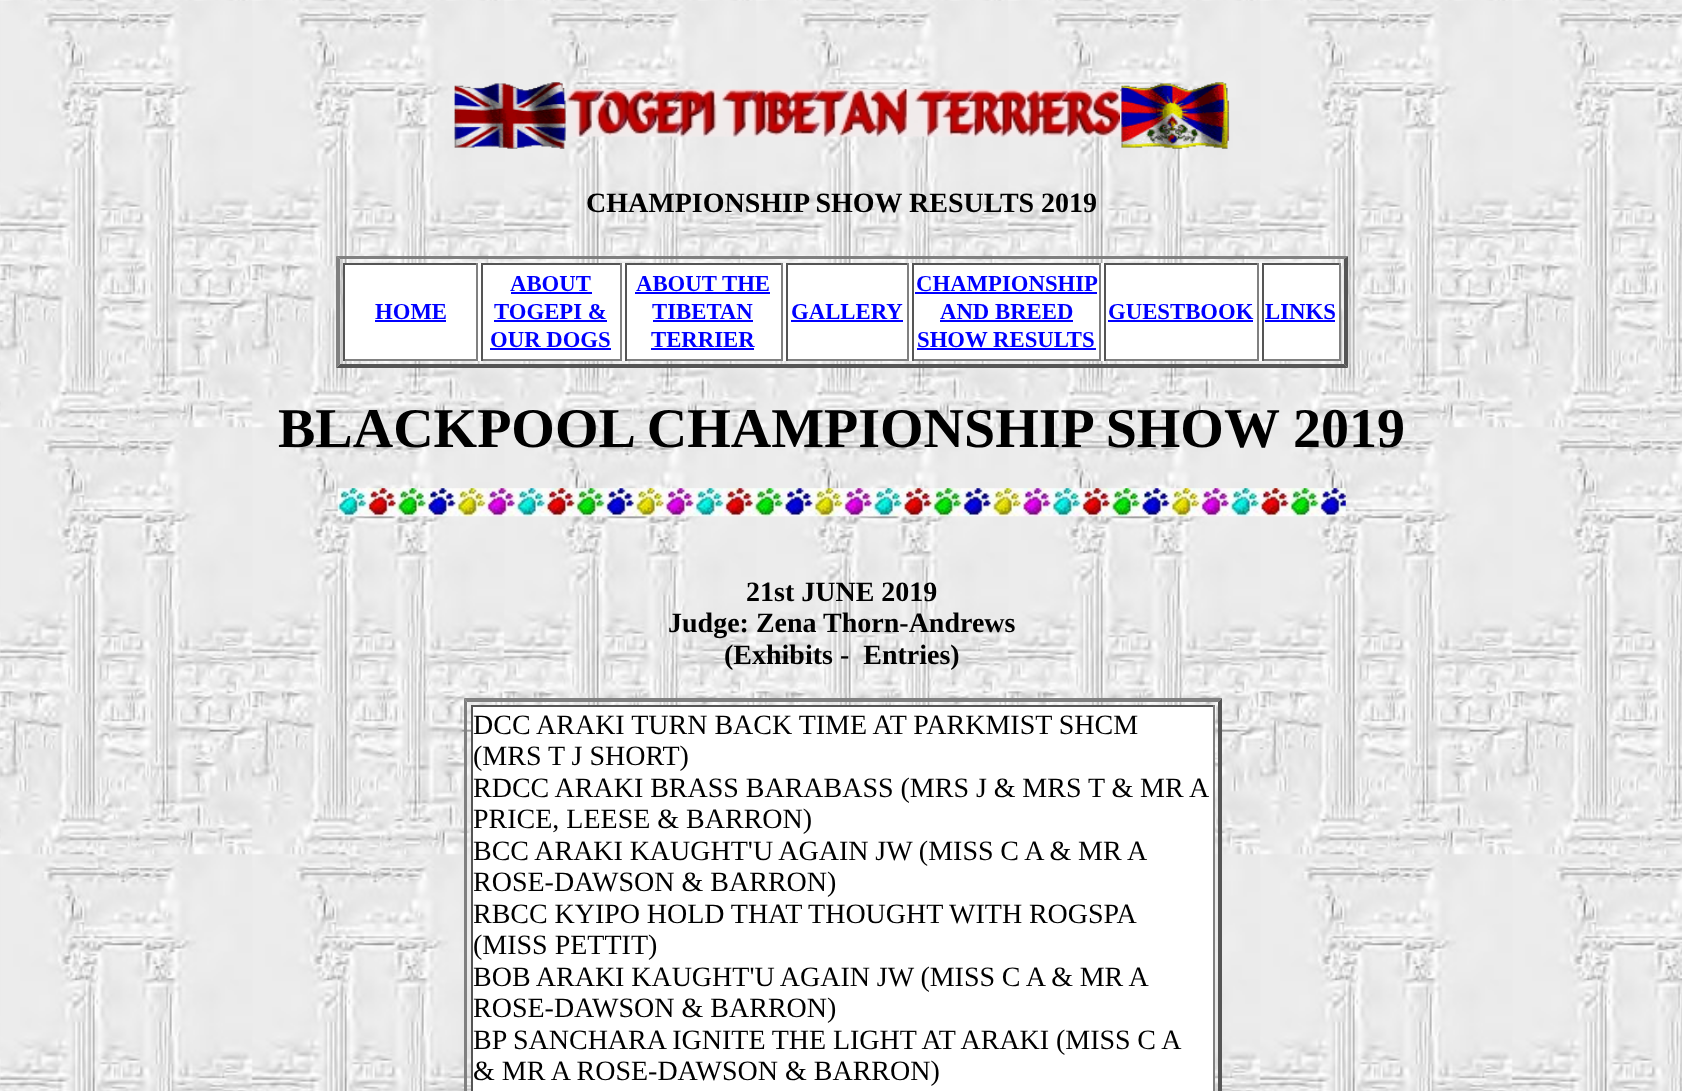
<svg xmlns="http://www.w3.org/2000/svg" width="1682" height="1091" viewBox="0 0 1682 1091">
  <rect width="100%" height="100%" fill="rgb(255,255,255)"/>
  <image x="0" y="0" width="1682" height="1091" href="pic1.png"/>
  <image x="454" y="82" width="112" height="67" href="pic2.png"/>
  <image x="567" y="89" width="553" height="48" href="pic3.png"/>
  <image x="1121" y="82" width="109" height="67" href="pic4.png"/>
  <text x="586" y="212" font-family="Liberation Serif" font-size="28" font-weight="bold" fill="rgb(0,0,0)">CHAMPIONSHIP SHOW RESULTS 2019</text>
  <path d="M336 256H1348L1344 259H340Z" fill="rgb(128,128,128)"/>
  <path d="M1348 256V368L1344 364V259Z" fill="rgb(85,85,85)"/>
  <path d="M1348 368H336L340 364H1344Z" fill="rgb(85,85,85)"/>
  <path d="M336 368V256L340 259V364Z" fill="rgb(128,128,128)"/>
  <rect x="345" y="263" width="994" height="98" fill="rgb(255,255,255)"/>
  <rect x="343" y="263" width="135" height="2" fill="rgb(85,85,85)"/>
  <rect x="476" y="263" width="2" height="98" fill="rgb(128,128,128)"/>
  <rect x="343" y="359" width="135" height="2" fill="rgb(128,128,128)"/>
  <rect x="343" y="263" width="2" height="98" fill="rgb(85,85,85)"/>
  <text x="375" y="319" font-family="Liberation Serif" font-size="22.75" font-weight="bold" fill="rgb(0,0,255)">HOME</text>
  <rect x="375" y="320" width="71" height="2" fill="rgb(0,0,255)"/>
  <rect x="481" y="263" width="140" height="2" fill="rgb(85,85,85)"/>
  <rect x="620" y="263" width="2" height="98" fill="rgb(128,128,128)"/>
  <rect x="481" y="359" width="140" height="2" fill="rgb(128,128,128)"/>
  <rect x="481" y="263" width="2" height="98" fill="rgb(85,85,85)"/>
  <text x="510" y="291" font-family="Liberation Serif" font-size="22.75" font-weight="bold" fill="rgb(0,0,255)">ABOUT</text>
  <rect x="511" y="292" width="81" height="2" fill="rgb(0,0,255)"/>
  <text x="494" y="319" font-family="Liberation Serif" font-size="22.75" font-weight="bold" fill="rgb(0,0,255)">TOGEPI &amp;</text>
  <rect x="494" y="320" width="113" height="2" fill="rgb(0,0,255)"/>
  <text x="490" y="347" font-family="Liberation Serif" font-size="22.75" font-weight="bold" fill="rgb(0,0,255)">OUR DOGS</text>
  <rect x="490" y="348" width="121" height="2" fill="rgb(0,0,255)"/>
  <rect x="625" y="263" width="157" height="2" fill="rgb(85,85,85)"/>
  <rect x="781" y="263" width="2" height="98" fill="rgb(128,128,128)"/>
  <rect x="625" y="359" width="157" height="2" fill="rgb(128,128,128)"/>
  <rect x="625" y="263" width="2" height="98" fill="rgb(85,85,85)"/>
  <text x="636" y="291" font-family="Liberation Serif" font-size="22.75" font-weight="bold" fill="rgb(0,0,255)">ABOUT</text>
  <rect x="635" y="292" width="135" height="2" fill="rgb(0,0,255)"/>
  <g font-family="Liberation Serif" font-size="22.75" font-weight="bold" fill="rgb(0,0,255)">
    <text x="722" y="291">THE</text>
    <text x="652" y="319">TIBETAN</text>
  </g>
  <rect x="653" y="320" width="100" height="2" fill="rgb(0,0,255)"/>
  <text x="651" y="347" font-family="Liberation Serif" font-size="22.75" font-weight="bold" fill="rgb(0,0,255)">TERRIER</text>
  <rect x="651" y="348" width="103" height="2" fill="rgb(0,0,255)"/>
  <rect x="786" y="263" width="122" height="2" fill="rgb(85,85,85)"/>
  <rect x="907" y="263" width="2" height="98" fill="rgb(128,128,128)"/>
  <rect x="786" y="359" width="122" height="2" fill="rgb(128,128,128)"/>
  <rect x="786" y="263" width="2" height="98" fill="rgb(85,85,85)"/>
  <text x="791" y="319" font-family="Liberation Serif" font-size="22.75" font-weight="bold" fill="rgb(0,0,255)">GALLERY</text>
  <rect x="791" y="320" width="112" height="2" fill="rgb(0,0,255)"/>
  <rect x="912" y="263" width="189" height="2" fill="rgb(85,85,85)"/>
  <rect x="1099" y="263" width="2" height="98" fill="rgb(128,128,128)"/>
  <rect x="912" y="359" width="189" height="2" fill="rgb(128,128,128)"/>
  <rect x="912" y="263" width="2" height="98" fill="rgb(85,85,85)"/>
  <text x="916" y="291" font-family="Liberation Serif" font-size="22.75" font-weight="bold" fill="rgb(0,0,255)">CHAMPIONSHIP</text>
  <rect x="915" y="292" width="182" height="2" fill="rgb(0,0,255)"/>
  <text x="940" y="319" font-family="Liberation Serif" font-size="22.75" font-weight="bold" fill="rgb(0,0,255)">AND BREED</text>
  <rect x="940" y="320" width="133" height="2" fill="rgb(0,0,255)"/>
  <text x="917" y="347" font-family="Liberation Serif" font-size="22.75" font-weight="bold" fill="rgb(0,0,255)">SHOW RESULTS</text>
  <rect x="917" y="348" width="179" height="2" fill="rgb(0,0,255)"/>
  <rect x="1104" y="263" width="154" height="2" fill="rgb(85,85,85)"/>
  <rect x="1257" y="263" width="2" height="98" fill="rgb(128,128,128)"/>
  <rect x="1104" y="359" width="154" height="2" fill="rgb(128,128,128)"/>
  <rect x="1104" y="263" width="2" height="98" fill="rgb(85,85,85)"/>
  <text x="1108" y="319" font-family="Liberation Serif" font-size="22.75" font-weight="bold" fill="rgb(0,0,255)">GUESTBOOK</text>
  <rect x="1108" y="320" width="145" height="2" fill="rgb(0,0,255)"/>
  <rect x="1262" y="263" width="79" height="2" fill="rgb(85,85,85)"/>
  <rect x="1339" y="263" width="2" height="98" fill="rgb(128,128,128)"/>
  <rect x="1262" y="359" width="79" height="2" fill="rgb(128,128,128)"/>
  <rect x="1262" y="263" width="2" height="98" fill="rgb(85,85,85)"/>
  <text x="1265" y="319" font-family="Liberation Serif" font-size="22.75" font-weight="bold" fill="rgb(0,0,255)">LINKS</text>
  <rect x="1265" y="320" width="70" height="2" fill="rgb(0,0,255)"/>
  <text x="278" y="447" font-family="Liberation Serif" font-size="56" font-weight="bold" fill="rgb(0,0,0)">BLACKPOOL CHAMPIONSHIP SHOW 2019</text>
  <image x="337" y="488" width="1009" height="29" href="pic5.png"/>
  <g font-family="Liberation Serif" font-size="28" font-weight="bold" fill="rgb(0,0,0)">
    <text x="746" y="601">21st JUNE 2019</text>
    <text x="668" y="632">Judge: Zena Thorn-Andrews</text>
    <text x="724" y="664" xml:space="preserve">(Exhibits -  Entries)</text>
  </g>
  <path d="M464 698H1222L1218 702H467Z" fill="rgb(128,128,128)"/>
  <path d="M1222 698V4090L1218 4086V702Z" fill="rgb(85,85,85)"/>
  <path d="M464 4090V698L467 702V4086Z" fill="rgb(128,128,128)"/>
  <rect x="473" y="707" width="740" height="384" fill="rgb(255,255,255)"/>
  <rect x="471" y="705" width="744" height="2" fill="rgb(85,85,85)"/>
  <rect x="1213" y="705" width="2" height="386" fill="rgb(128,128,128)"/>
  <rect x="471" y="705" width="2" height="386" fill="rgb(85,85,85)"/>
  <g font-family="Liberation Serif" font-size="28" fill="rgb(0,0,0)">
    <text>
      <tspan x="473" y="734">DCC ARAKI TURN BACK TIME AT PARKMIST SHCM</tspan>
      <tspan x="473" y="765">(MRS T J SHORT)</tspan>
      <tspan x="473" y="797" word-spacing="-0.1">RDCC ARAKI BRASS BARABASS (MRS J &amp; MRS T &amp; MR A</tspan>
      <tspan x="473" y="828">PRICE, LEESE &amp; BARRON)</tspan>
      <tspan x="473" y="860" word-spacing="-0.25">BCC ARAKI KAUGHT'U AGAIN JW (MISS C A &amp; MR A</tspan>
      <tspan x="473" y="891">ROSE-DAWSON &amp; BARRON)</tspan>
      <tspan x="473" y="923" word-spacing="-0.25">RBCC KYIPO HOLD THAT THOUGHT WITH ROGSPA</tspan>
      <tspan x="473" y="954">(MISS PETTIT)</tspan>
      <tspan x="473" y="986" word-spacing="-0.25">BOB ARAKI KAUGHT'U AGAIN JW (MISS C A &amp; MR A</tspan>
      <tspan x="473" y="1017">ROSE-DAWSON &amp; BARRON)</tspan>
      <tspan x="473" y="1049" word-spacing="-0.25">BP SANCHARA IGNITE THE LIGHT AT ARAKI (MISS C A</tspan>
      <tspan x="473" y="1080">&amp; MR A ROSE-DAWSON &amp; BARRON)</tspan>
    </text>
  </g>
</svg>
